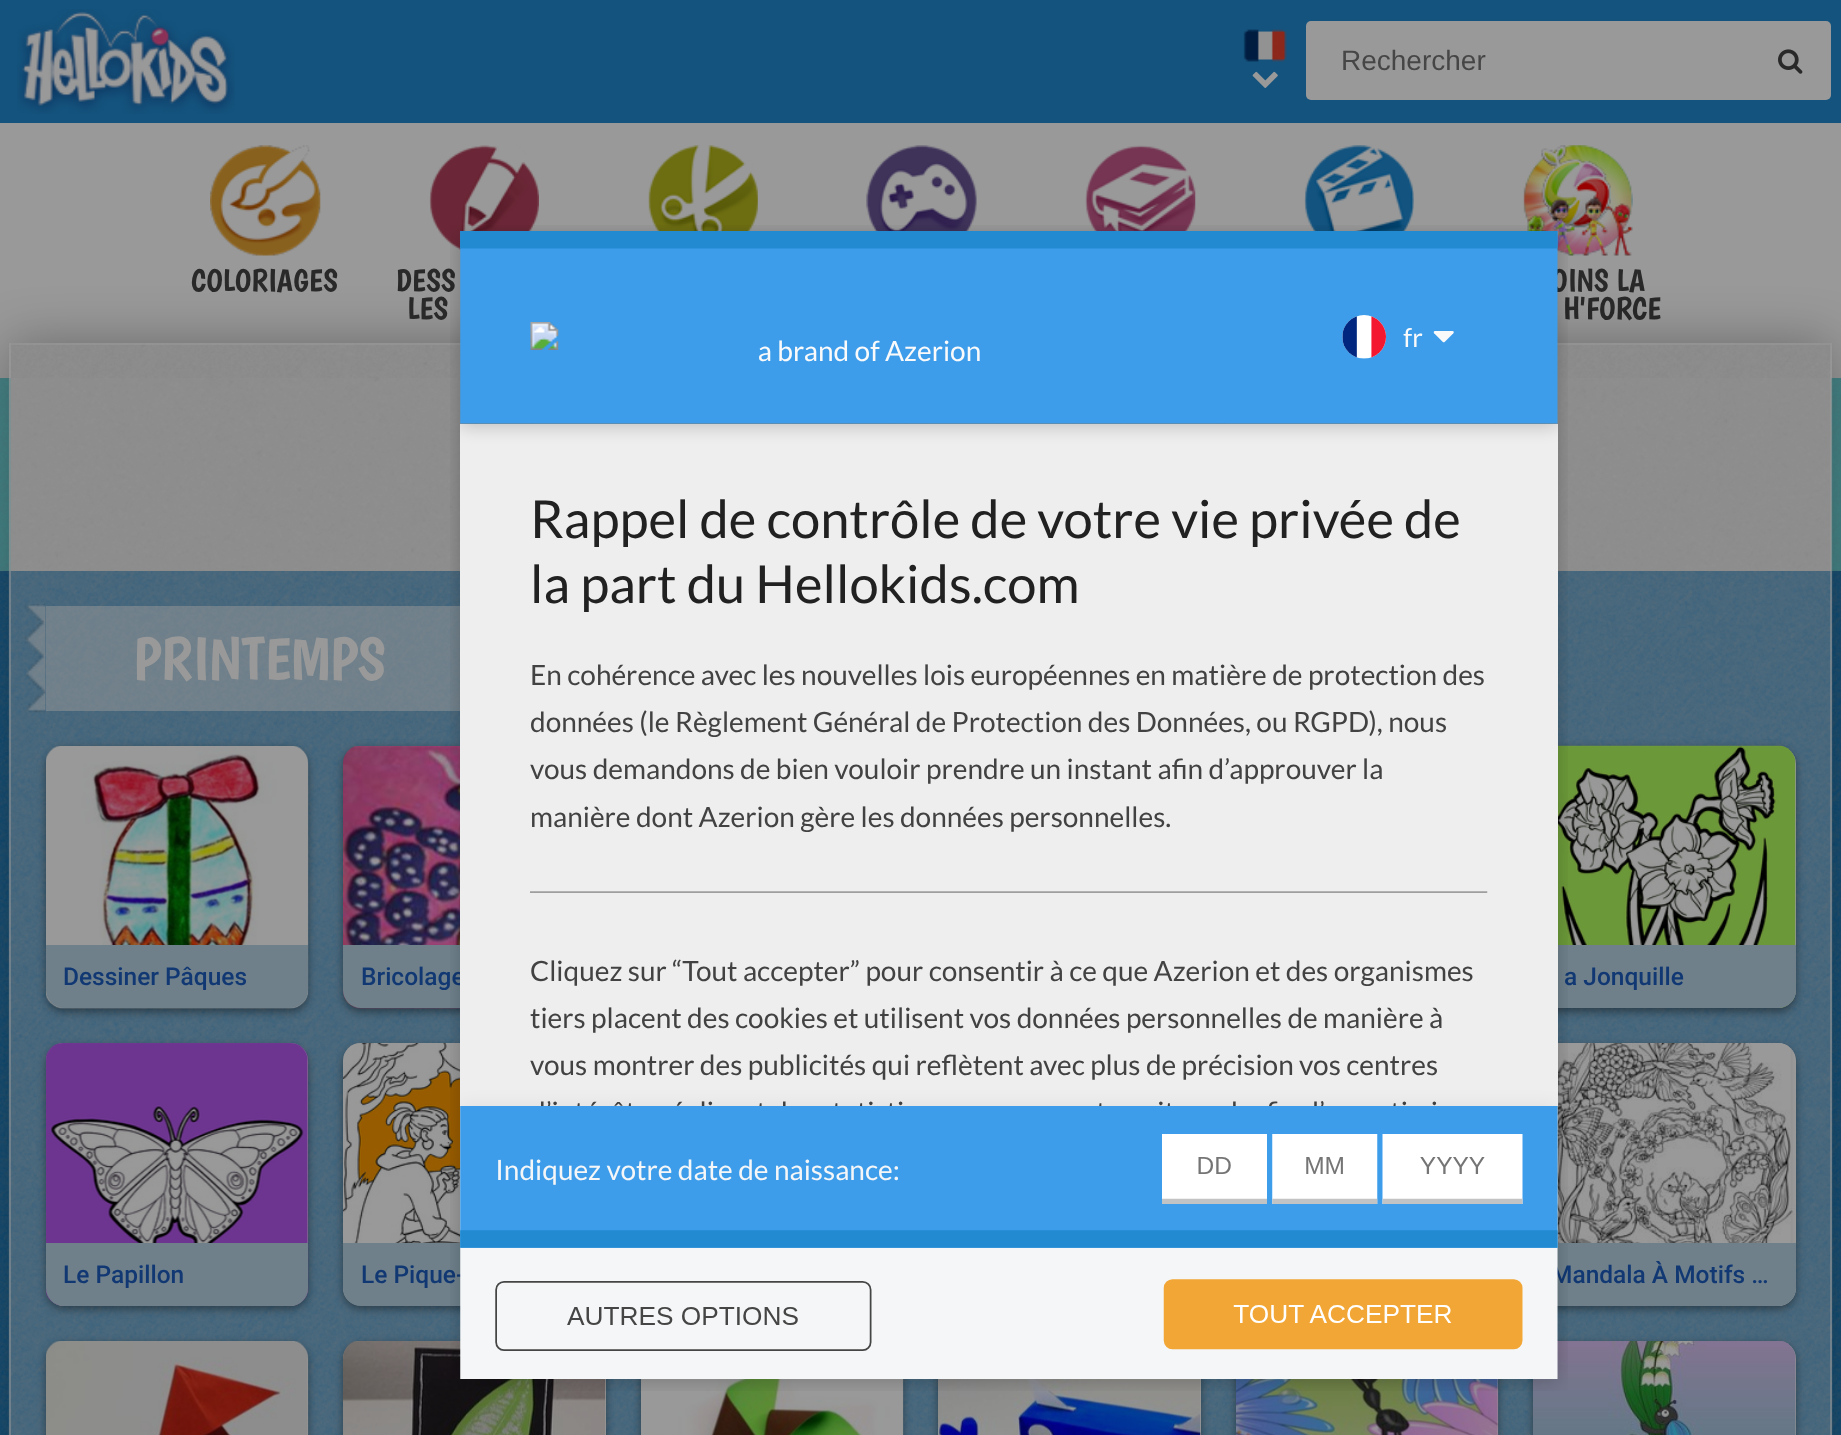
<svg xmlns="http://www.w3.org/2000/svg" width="1841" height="1435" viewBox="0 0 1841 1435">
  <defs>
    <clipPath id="clip1"><path d="M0 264H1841V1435H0ZM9 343H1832V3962H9Z" clip-rule="evenodd"/></clipPath>
  </defs>
  <rect width="100%" height="100%" fill="rgb(153,153,153)"/>
  <rect x="0" y="0" width="1841" height="123" fill="rgb(20,83,125)"/>
  <image x="17" y="9" width="218" height="105" href="pic1.png"/>
  <image x="1243" y="29" width="44" height="33" href="pic2.png"/>
  <image x="1252" y="71" width="26" height="17" href="pic3.png"/>
  <rect x="1306" y="21" width="525" height="79" rx="5" fill="rgb(153,153,153)"/>
  <text x="1341" y="70" font-family="Liberation Sans" font-size="28" fill="rgb(70,70,70)">Rechercher</text>
  <image x="1778" y="49" width="25" height="25" href="pic4.png"/>
  <image x="648" y="145" width="110" height="86" href="pic6.png"/>
  <image x="866" y="145" width="111" height="86" href="pic7.png"/>
  <image x="1085" y="145" width="111" height="86" href="pic8.png"/>
  <image x="1304" y="145" width="110" height="86" href="pic9.png"/>
  <image x="429" y="145" width="110" height="106" href="pic11.png"/>
  <text x="396" y="291" font-family="Boogaloo" font-size="31.5" fill="rgb(41,41,41)">DESS</text>
  <image x="1523" y="145" width="110" height="111" href="pic12.png"/>
  <g font-family="Boogaloo" font-size="31.5" fill="rgb(41,41,41)">
    <text x="1551" y="291">OINS LA</text>
    <text x="1563" y="319">H'FORCE</text>
  </g>
  <rect x="11" y="343" width="1820" height="35" fill="rgb(145,145,145)"/>
  <image x="10" y="343" width="1820" height="35" href="pic14.png"/>
  <rect x="0" y="378" width="1841" height="193" fill="rgb(70,136,139)"/>
  <image x="0" y="378" width="1841" height="193" href="pic15.png"/>
  <rect x="0" y="571" width="1841" height="864" fill="rgb(19,79,119)"/>
  <image x="0" y="570" width="1841" height="865" href="pic16.png"/>
  <rect x="11" y="378" width="1820" height="193" fill="rgb(145,145,145)"/>
  <image x="0" y="570" width="1841" height="865" href="pic17.png"/>
  <g clip-path="url(#clip1)">
    <rect x="9" y="343" width="1823" height="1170" fill="rgba(0,0,0,0.3)" filter="blur(26px)"/>
  </g>
  <image x="8" y="343" width="1825" height="1092" href="pic13.png"/>
  <rect x="10" y="344" width="1821" height="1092" fill="none" stroke="rgba(153,153,153,0.5)" stroke-width="2"/>
  <rect x="46" y="606" width="414" height="105" fill="rgba(153,153,153,0.5)"/>
  <rect x="343" y="749" width="263" height="263" rx="18" fill="rgba(0,0,0,0.4)" filter="blur(4.5px)"/>
  <image x="343" y="746" width="117" height="263" href="pic20.png"/>
  <path d="M343 945H606V990C606 1000 598 1008 588 1008H361C351 1008 343 1000 343 990Z" fill="rgb(111,128,139)"/>
  <text x="361" y="985" font-family="Roboto" font-size="24.5" font-weight="500" fill="rgb(17,56,115)">Bricolage</text>
  <rect x="1533" y="749" width="263" height="263" rx="18" fill="rgba(0,0,0,0.4)" filter="blur(4.5px)"/>
  <rect x="1533" y="746" width="263" height="262" rx="18" fill="rgb(153,153,153)"/>
  <image x="1558" y="745" width="238" height="263" href="pic21.png"/>
  <path d="M1533 945H1796V990C1796 1000 1788 1008 1778 1008H1551C1541 1008 1533 1000 1533 990Z" fill="rgb(111,128,139)"/>
  <text x="1564" y="985" font-family="Roboto" font-size="24.5" font-weight="500" fill="rgb(17,56,115)">a Jonquille</text>
  <rect x="343" y="1047" width="263" height="262" rx="18" fill="rgba(0,0,0,0.4)" filter="blur(4.5px)"/>
  <image x="343" y="1043" width="118" height="263" href="pic23.png"/>
  <path d="M343 1243H606V1288C606 1298 598 1306 588 1306H361C351 1306 343 1298 343 1288Z" fill="rgb(111,128,139)"/>
  <text x="361" y="1283" font-family="Roboto" font-size="24.5" font-weight="500" fill="rgb(17,56,115)">Le Pique-</text>
  <rect x="1533" y="1047" width="263" height="262" rx="18" fill="rgba(0,0,0,0.4)" filter="blur(4.5px)"/>
  <rect x="1533" y="1043" width="263" height="263" rx="18" fill="rgb(153,153,153)"/>
  <image x="1557" y="1043" width="239" height="263" href="pic24.png"/>
  <path d="M1533 1243H1796V1288C1796 1298 1788 1306 1778 1306H1551C1541 1306 1533 1298 1533 1288Z" fill="rgb(111,128,139)"/>
  <text x="1551" y="1283" font-family="Roboto" font-size="24.5" font-weight="500" fill="rgb(17,56,115)">Mandala À Motifs …</text>
  <rect x="343" y="1344" width="263" height="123" rx="18" fill="rgba(0,0,0,0.4)" filter="blur(4.5px)"/>
  <rect x="343" y="1341" width="263" height="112" rx="18" fill="rgb(153,153,153)"/>
  <image x="343" y="1341" width="263" height="94" href="pic26.png"/>
  <rect x="641" y="1344" width="262" height="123" rx="18" fill="rgba(0,0,0,0.4)" filter="blur(4.5px)"/>
  <rect x="902" y="1379" width="1" height="56" fill="rgb(153,153,153)"/>
  <image x="641" y="1379" width="263" height="56" href="pic27.png"/>
  <rect x="938" y="1344" width="263" height="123" rx="18" fill="rgba(0,0,0,0.4)" filter="blur(4.5px)"/>
  <rect x="1200" y="1379" width="1" height="56" fill="rgb(153,153,153)"/>
  <image x="938" y="1379" width="263" height="56" href="pic28.png"/>
  <rect x="1236" y="1344" width="262" height="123" rx="18" fill="rgba(0,0,0,0.4)" filter="blur(4.5px)"/>
  <rect x="1497" y="1379" width="1" height="56" fill="rgb(153,153,153)"/>
  <image x="1236" y="1379" width="263" height="56" href="pic29.png"/>
  <rect x="1533" y="1344" width="263" height="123" rx="18" fill="rgba(0,0,0,0.4)" filter="blur(4.5px)"/>
  <rect x="1533" y="1341" width="263" height="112" rx="18" fill="rgb(153,153,153)"/>
  <image x="1533" y="1341" width="263" height="94" href="pic30.png"/>
  <image x="450" y="225" width="1118" height="1166" href="pic5.png"/>
  <image x="210" y="145" width="111" height="111" href="pic10.png"/>
  <g font-family="Boogaloo" font-size="31.5" fill="rgb(41,41,41)">
    <text x="191" y="291">COLORIAGES</text>
    <text x="407" y="319">LES</text>
  </g>
  <image x="24" y="604" width="22" height="109" href="pic18.png"/>
  <text x="133" y="679" font-family="Boogaloo" font-size="59.5" fill="rgb(153,153,153)">PRINTEMPS</text>
  <rect x="46" y="749" width="262" height="263" rx="18" fill="rgba(0,0,0,0.4)" filter="blur(4.5px)"/>
  <rect x="46" y="746" width="262" height="262" rx="18" fill="rgb(153,153,153)"/>
  <image x="46" y="746" width="263" height="263" href="pic19.png"/>
  <path d="M46 945H308V990C308 1000 300 1008 290 1008H64C54 1008 46 1000 46 990Z" fill="rgb(111,128,139)"/>
  <text x="63" y="985" font-family="Roboto" font-size="24.5" font-weight="500" fill="rgb(17,56,115)">Dessiner Pâques</text>
  <rect x="46" y="1047" width="262" height="262" rx="18" fill="rgba(0,0,0,0.4)" filter="blur(4.5px)"/>
  <rect x="46" y="1043" width="262" height="263" rx="18" fill="rgb(153,153,153)"/>
  <image x="46" y="1043" width="263" height="263" href="pic22.png"/>
  <path d="M46 1243H308V1288C308 1298 300 1306 290 1306H64C54 1306 46 1298 46 1288Z" fill="rgb(111,128,139)"/>
  <text x="63" y="1283" font-family="Roboto" font-size="24.5" font-weight="500" fill="rgb(17,56,115)">Le Papillon</text>
  <rect x="46" y="1344" width="262" height="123" rx="18" fill="rgba(0,0,0,0.4)" filter="blur(4.5px)"/>
  <rect x="46" y="1341" width="262" height="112" rx="18" fill="rgb(153,153,153)"/>
  <image x="46" y="1341" width="263" height="94" href="pic25.png"/>
</svg>
